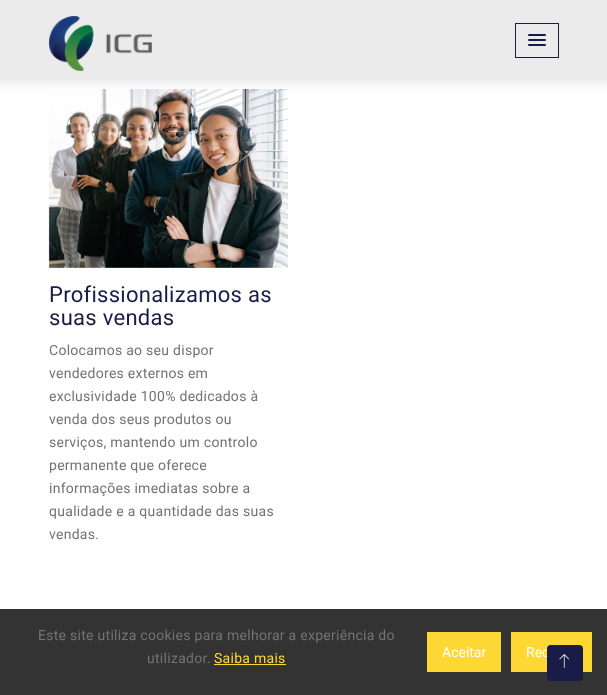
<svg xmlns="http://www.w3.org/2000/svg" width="607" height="695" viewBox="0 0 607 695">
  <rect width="100%" height="100%" fill="rgb(255,255,255)"/>
  <image x="48" y="89" width="241" height="179" href="pic2.png"/>
  <rect x="-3" y="0" width="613" height="86" fill="rgba(0,0,0,0.06)" filter="blur(3px)"/>
  <rect x="0" y="0" width="607" height="80" fill="rgb(235,235,235)"/>
  <image x="49" y="16" width="103" height="55" href="pic1.png"/>
  <rect x="515.5" y="23.5" width="43" height="34" fill="none" stroke="rgb(25,28,72)"/>
  <rect x="528" y="34" width="18" height="2" rx="1" fill="rgb(25,28,72)"/>
  <rect x="528" y="39" width="18" height="2" rx="1" fill="rgb(25,28,72)"/>
  <rect x="528" y="44" width="18" height="2" rx="1" fill="rgb(25,28,72)"/>
  <g font-family="Roboto" font-size="22" letter-spacing="0.28" fill="rgb(25,28,72)">
    <text>
      <tspan x="49" y="302">Profissionalizamos as</tspan>
      <tspan x="49" y="325">suas vendas</tspan>
    </text>
  </g>
  <g font-family="Roboto" font-size="14" letter-spacing="0.28" fill="rgb(115,115,115)">
    <text>
      <tspan x="49" y="355">Colocamos ao seu dispor</tspan>
      <tspan x="49" y="378">vendedores externos em</tspan>
      <tspan x="49" y="401">exclusividade 100% dedicados à</tspan>
      <tspan x="49" y="424">venda dos seus produtos ou</tspan>
      <tspan x="49" y="447">serviços, mantendo um controlo</tspan>
      <tspan x="49" y="470">permanente que oferece</tspan>
      <tspan x="49" y="493">informações imediatas sobre a</tspan>
      <tspan x="49" y="516">qualidade e a quantidade das suas</tspan>
      <tspan x="49" y="539">vendas.</tspan>
    </text>
  </g>
  <rect x="0" y="609" width="607" height="86" fill="rgb(51,51,51)"/>
  <g font-family="Roboto" font-size="14" letter-spacing="0.28" fill="rgb(115,115,115)">
    <text x="38" y="640">Este site utiliza cookies para melhorar a experiência do</text>
    <text x="147" y="663">utilizador.</text>
  </g>
  <text x="214" y="663" font-family="Roboto" font-size="14" letter-spacing="0.28" fill="rgb(253,216,53)">Saiba mais</text>
  <rect x="214" y="664" width="72" height="1" fill="rgb(253,216,53)"/>
  <rect x="427" y="632" width="74" height="40" fill="rgb(253,216,53)"/>
  <text x="442" y="657" font-family="Roboto" font-size="14" fill="rgb(255,255,255)">Aceitar</text>
  <rect x="511" y="632" width="81" height="40" fill="rgb(253,216,53)"/>
  <text x="526" y="657" font-family="Roboto" font-size="14" fill="rgb(255,255,255)">Rec</text>
  <rect x="547" y="645" width="36" height="36" rx="4" fill="rgb(25,28,72)"/>
  <image x="559" y="654" width="10" height="14" href="pic3.png"/>
</svg>
